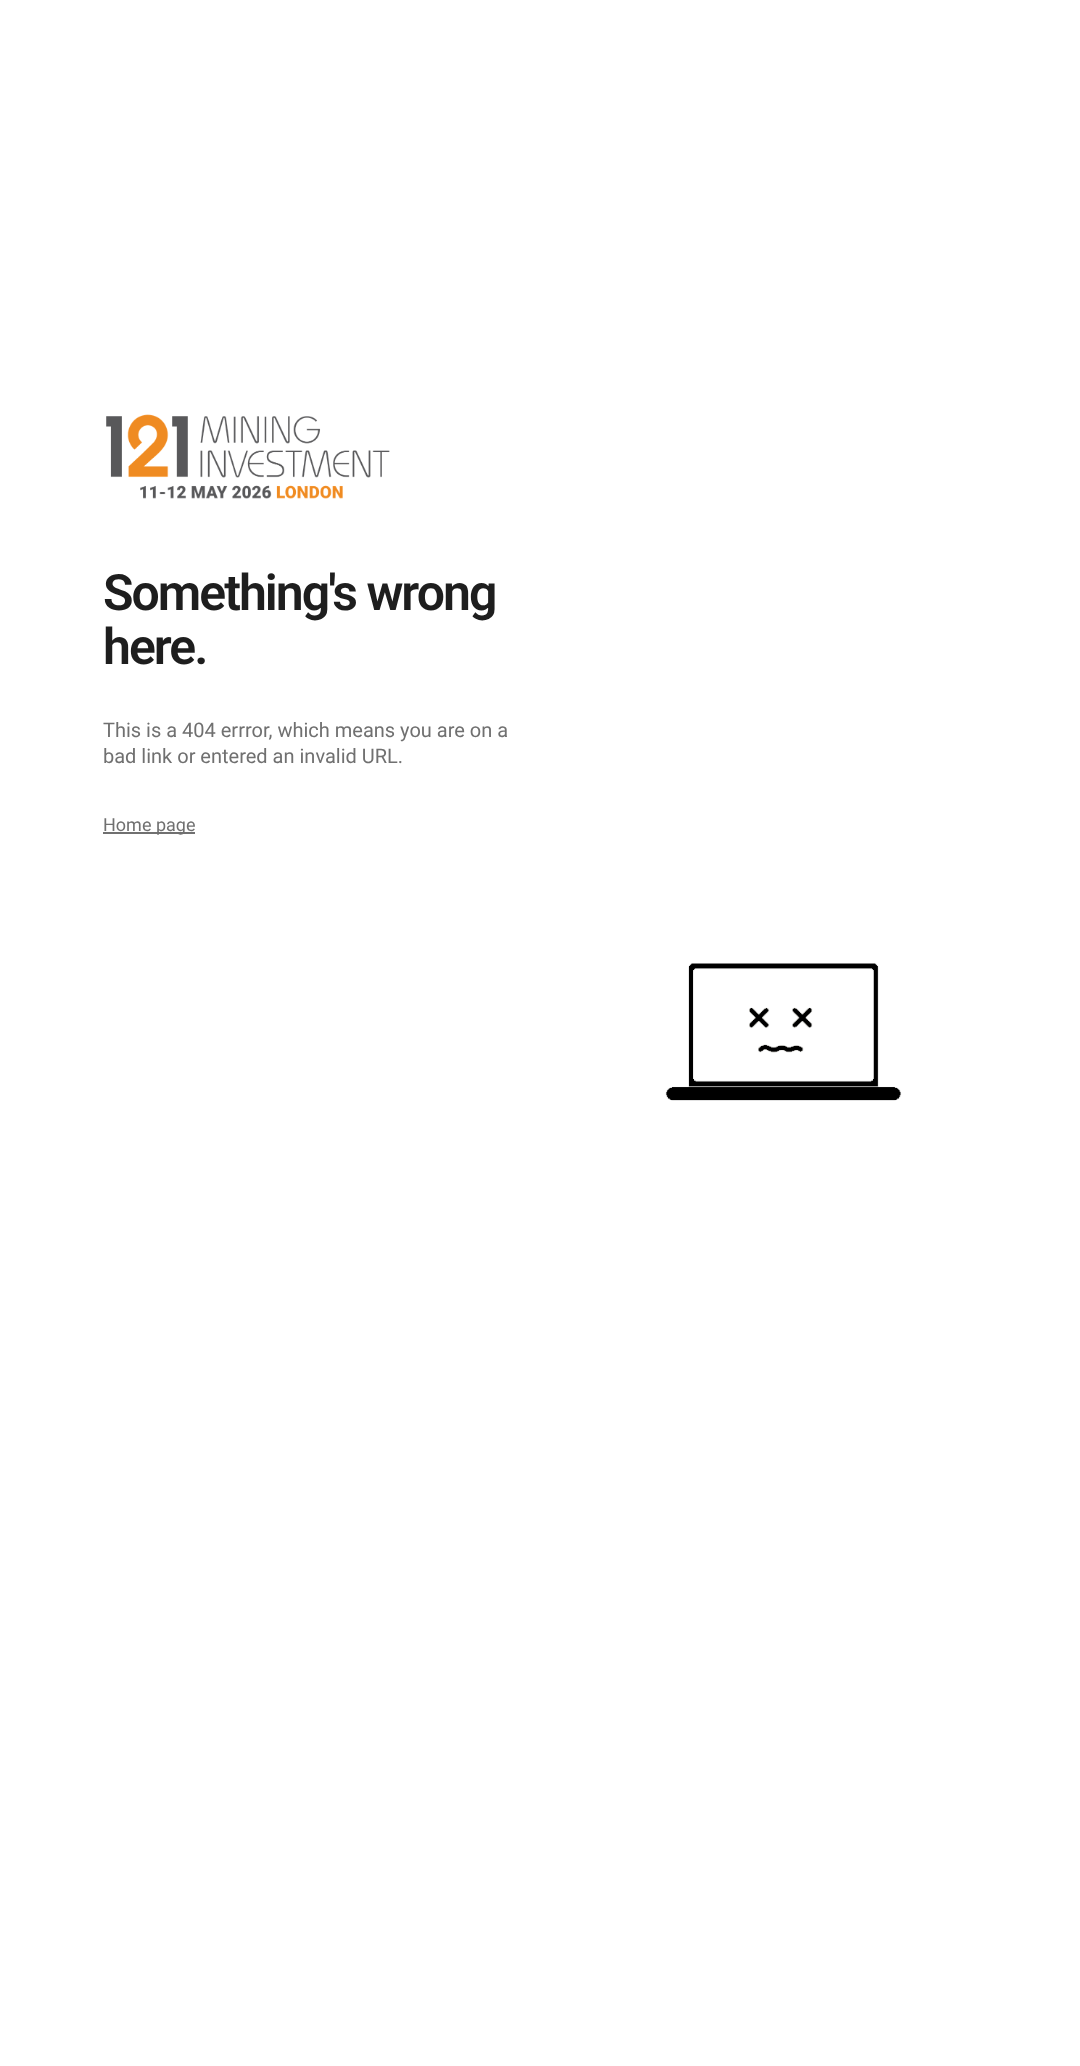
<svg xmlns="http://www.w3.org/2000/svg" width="1080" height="2066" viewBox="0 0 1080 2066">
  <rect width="100%" height="100%" fill="rgb(255,255,255)"/>
  <image x="106" y="414" width="284" height="85" href="pic1.png"/>
  <g font-family="Roboto" font-size="50" font-weight="600" letter-spacing="-2" fill="rgb(30,30,30)">
    <text>
      <tspan x="103" y="610">Something's wrong</tspan>
      <tspan x="103" y="664">here.</tspan>
    </text>
  </g>
  <g font-family="Roboto" font-size="20" fill="rgb(112,112,112)">
    <text>
      <tspan x="103" y="737">This is a 404 errror, which means you are on a</tspan>
      <tspan x="103" y="763">bad link or entered an invalid URL.</tspan>
    </text>
  </g>
  <rect x="103" y="832" width="92" height="2" fill="rgb(112,112,112)"/>
  <text x="103" y="831" font-family="Roboto" font-size="18" fill="rgb(112,112,112)">Home page</text>
  <image x="665" y="963" width="237" height="138" href="pic2.png"/>
</svg>
